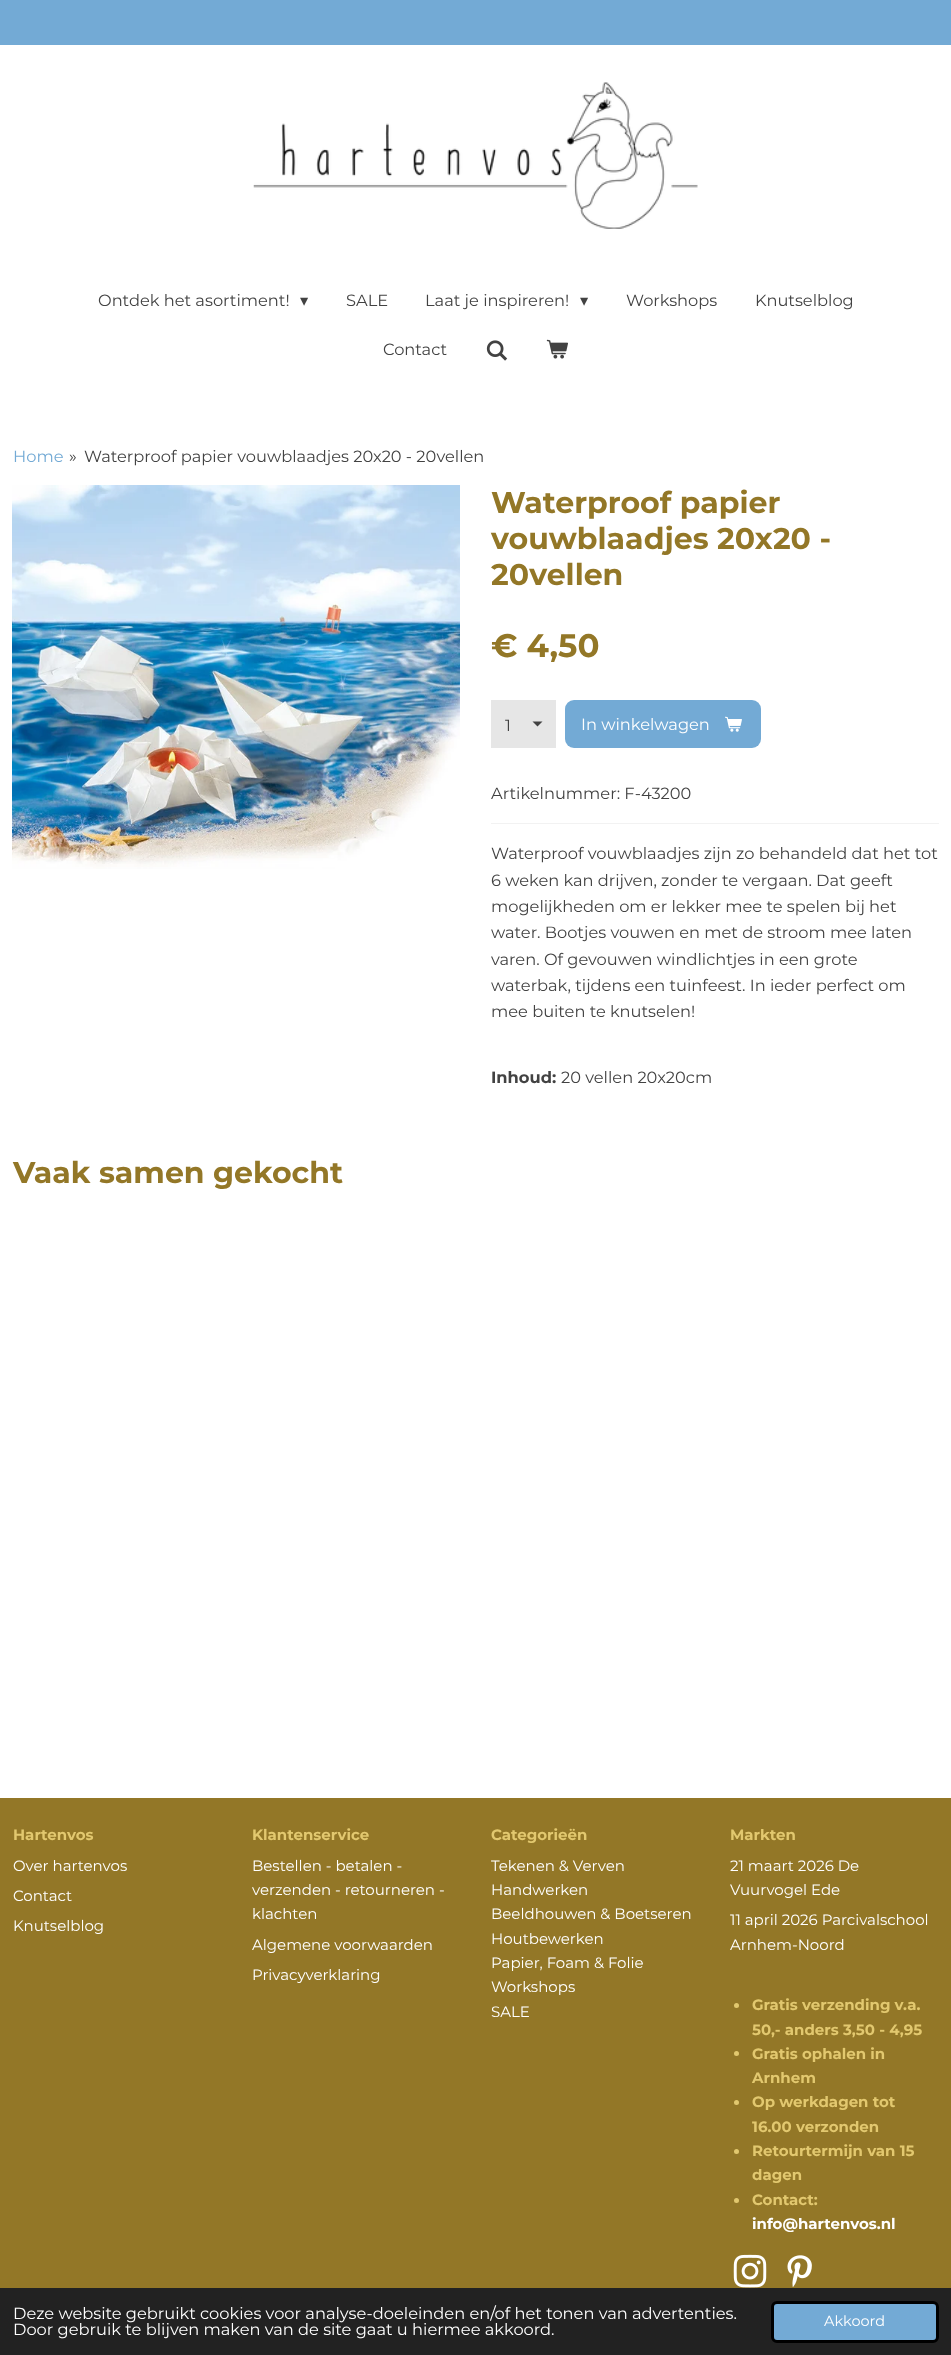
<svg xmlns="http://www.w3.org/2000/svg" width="951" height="2355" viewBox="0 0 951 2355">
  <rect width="100%" height="100%" fill="rgb(255,255,255)"/>
  <rect x="0" y="0" width="951" height="45" fill="rgb(115,170,213)"/>
  <image x="253" y="82" width="445" height="147" href="pic1.png"/>
  <text x="98" y="306" font-family="Montserrat" font-size="16.25" fill="rgb(66,66,66)">Ontdek het asortiment!</text>
  <text x="300" y="306" font-family="DejaVu Sans" font-size="16.25" fill="rgb(66,66,66)">▾</text>
  <g font-family="Montserrat" font-size="16.25" fill="rgb(66,66,66)">
    <text x="346" y="306">SALE</text>
    <text x="425" y="306">Laat je inspireren!</text>
  </g>
  <text x="580" y="306" font-family="DejaVu Sans" font-size="16.25" fill="rgb(66,66,66)">▾</text>
  <g font-family="Montserrat" font-size="16.25" fill="rgb(66,66,66)">
    <text x="626" y="306">Workshops</text>
    <text x="755" y="306">Knutselblog</text>
    <text x="383" y="355">Contact</text>
  </g>
  <image x="486" y="340" width="22" height="21" href="pic2.png"/>
  <image x="546" y="339" width="22" height="20" href="pic3.png"/>
  <text x="13" y="462" font-family="Montserrat" font-size="16.25" fill="rgb(115,170,213)">Home</text>
  <g font-family="Montserrat" font-size="16.25" fill="rgb(66,66,66)">
    <text x="69" y="462">»</text>
    <text x="84" y="462">Waterproof papier vouwblaadjes 20x20 - 20vellen</text>
  </g>
  <image x="12" y="485" width="448" height="384" href="pic4.png"/>
  <g font-family="Montserrat" font-size="30" font-weight="bold" fill="rgb(147,119,39)">
    <text>
      <tspan x="491" y="513">Waterproof papier</tspan>
      <tspan x="491" y="549">vouwblaadjes 20x20 -</tspan>
      <tspan x="491" y="585">20vellen</tspan>
    </text>
  </g>
  <text x="491" y="657" font-family="Montserrat" font-size="32.5" font-weight="bold" fill="rgb(147,119,39)">€ 4,50</text>
  <rect x="491" y="700" width="65" height="48" fill="rgb(230,230,230)"/>
  <path d="M537.5 726.5L532.5 721.5H542.5Z" fill="rgb(66,66,66)"/>
  <text x="505" y="731" font-family="Montserrat" font-size="16.25" fill="rgb(66,66,66)">1</text>
  <rect x="565" y="700" width="196" height="48" rx="9" fill="rgb(115,170,213)"/>
  <text x="581" y="730" font-family="Montserrat" font-size="16.25" fill="rgb(255,255,255)">In winkelwagen</text>
  <image x="725" y="716" width="17" height="16" href="pic5.png"/>
  <text x="491" y="799" font-family="Montserrat" font-size="16.25" fill="rgb(66,66,66)">Artikelnummer: F-43200</text>
  <rect x="491" y="823" width="448" height="1" fill="rgb(242,242,242)"/>
  <g font-family="Montserrat" font-size="16.25" fill="rgb(66,66,66)">
    <text>
      <tspan x="491" y="859">Waterproof vouwblaadjes zijn zo behandeld dat het tot</tspan>
      <tspan x="491" y="886">6 weken kan drijven, zonder te vergaan. Dat geeft</tspan>
      <tspan x="491" y="912">mogelijkheden om er lekker mee te spelen bij het</tspan>
      <tspan x="491" y="938">water. Bootjes vouwen en met de stroom mee laten</tspan>
      <tspan x="491" y="965">varen. Of gevouwen windlichtjes in een grote</tspan>
      <tspan x="491" y="991">waterbak, tijdens een tuinfeest. In ieder perfect om</tspan>
      <tspan x="491" y="1017">mee buiten te knutselen!</tspan>
    </text>
  </g>
  <text x="491" y="1083" font-family="Montserrat" font-size="16.25" font-weight="bold" fill="rgb(66,66,66)">Inhoud:</text>
  <text x="561" y="1083" font-family="Montserrat" font-size="16.25" fill="rgb(66,66,66)">20 vellen 20x20cm</text>
  <text x="13" y="1183" font-family="Montserrat" font-size="30" font-weight="bold" fill="rgb(147,119,39)">Vaak samen gekocht</text>
  <rect x="0" y="1798" width="951" height="490" fill="rgb(147,119,39)"/>
  <text x="13" y="1840" font-family="Montserrat" font-size="15" font-weight="bold" fill="rgb(226,200,111)">Hartenvos</text>
  <g font-family="Montserrat" font-size="15" fill="rgb(255,255,255)">
    <text x="13" y="1871">Over hartenvos</text>
    <text x="13" y="1901">Contact</text>
    <text x="13" y="1931">Knutselblog</text>
  </g>
  <text x="252" y="1840" font-family="Montserrat" font-size="15" font-weight="bold" fill="rgb(226,200,111)">Klantenservice</text>
  <g font-family="Montserrat" font-size="15" fill="rgb(255,255,255)">
    <text>
      <tspan x="252" y="1871">Bestellen - betalen -</tspan>
      <tspan x="252" y="1895">verzenden - retourneren -</tspan>
      <tspan x="252" y="1919">klachten</tspan>
    </text>
    <text x="252" y="1950">Algemene voorwaarden</text>
    <text x="252" y="1980">Privacyverklaring</text>
  </g>
  <text x="491" y="1840" font-family="Montserrat" font-size="15" font-weight="bold" fill="rgb(226,200,111)">Categorieën</text>
  <g font-family="Montserrat" font-size="15" fill="rgb(255,255,255)">
    <text>
      <tspan x="491" y="1871">Tekenen &amp; Verven</tspan>
      <tspan x="491" y="1895">Handwerken</tspan>
      <tspan x="491" y="1919">Beeldhouwen &amp; Boetseren</tspan>
      <tspan x="491" y="1944">Houtbewerken</tspan>
      <tspan x="491" y="1968">Papier, Foam &amp; Folie</tspan>
      <tspan x="491" y="1992">Workshops</tspan>
      <tspan x="491" y="2017">SALE</tspan>
    </text>
  </g>
  <text x="730" y="1840" font-family="Montserrat" font-size="15" font-weight="bold" fill="rgb(226,200,111)">Markten</text>
  <g font-family="Montserrat" font-size="15" fill="rgb(255,255,255)">
    <text>
      <tspan x="730" y="1871">21 maart 2026 De</tspan>
      <tspan x="730" y="1895">Vuurvogel Ede</tspan>
    </text>
    <text>
      <tspan x="730" y="1925">11 april 2026 Parcivalschool</tspan>
      <tspan x="730" y="1950">Arnhem-Noord</tspan>
    </text>
  </g>
  <circle cx="736.5" cy="2005.5" r="2.5" fill="rgb(226,200,111)"/>
  <g font-family="Montserrat" font-size="15" font-weight="bold" fill="rgb(226,200,111)">
    <text>
      <tspan x="752" y="2010">Gratis verzending v.a.</tspan>
      <tspan x="752" y="2035">50,- anders 3,50 - 4,95</tspan>
    </text>
  </g>
  <circle cx="736.5" cy="2053.5" r="2.5" fill="rgb(226,200,111)"/>
  <g font-family="Montserrat" font-size="15" font-weight="bold" fill="rgb(226,200,111)">
    <text>
      <tspan x="752" y="2059">Gratis ophalen in</tspan>
      <tspan x="752" y="2083">Arnhem</tspan>
    </text>
  </g>
  <circle cx="736.5" cy="2102.5" r="2.5" fill="rgb(226,200,111)"/>
  <g font-family="Montserrat" font-size="15" font-weight="bold" fill="rgb(226,200,111)">
    <text>
      <tspan x="752" y="2107">Op werkdagen tot</tspan>
      <tspan x="752" y="2132">16.00 verzonden</tspan>
    </text>
  </g>
  <circle cx="736.5" cy="2151.5" r="2.5" fill="rgb(226,200,111)"/>
  <g font-family="Montserrat" font-size="15" font-weight="bold" fill="rgb(226,200,111)">
    <text>
      <tspan x="752" y="2156">Retourtermijn van 15</tspan>
      <tspan x="752" y="2180">dagen</tspan>
    </text>
  </g>
  <circle cx="736.5" cy="2200.5" r="2.5" fill="rgb(226,200,111)"/>
  <text x="752" y="2205" font-family="Montserrat" font-size="15" font-weight="bold" fill="rgb(226,200,111)">Contact:</text>
  <text x="752" y="2229" font-family="Montserrat" font-size="15" font-weight="bold" fill="rgb(255,255,255)">info@hartenvos.nl</text>
  <image x="733" y="2254" width="34" height="34" href="pic6.png"/>
  <image x="787" y="2255" width="25" height="32" href="pic7.png"/>
  <rect x="0" y="2288" width="951" height="67" fill="rgb(34,34,34)"/>
  <g font-family="Montserrat" font-size="16.25" fill="rgb(255,255,255)">
    <text>
      <tspan x="13" y="2319">Deze website gebruikt cookies voor analyse-doeleinden en/of het tonen van advertenties.</tspan>
      <tspan x="13" y="2335">Door gebruik te blijven maken van de site gaat u hiermee akkoord.</tspan>
    </text>
  </g>
  <rect x="772.5" y="2302.5" width="165" height="39" rx="4.5" fill="rgb(115,170,213)" stroke="rgb(0,0,0)" stroke-width="3"/>
  <text x="824" y="2326" font-family="Montserrat" font-size="14.5" fill="rgb(255,255,255)">Akkoord</text>
</svg>
